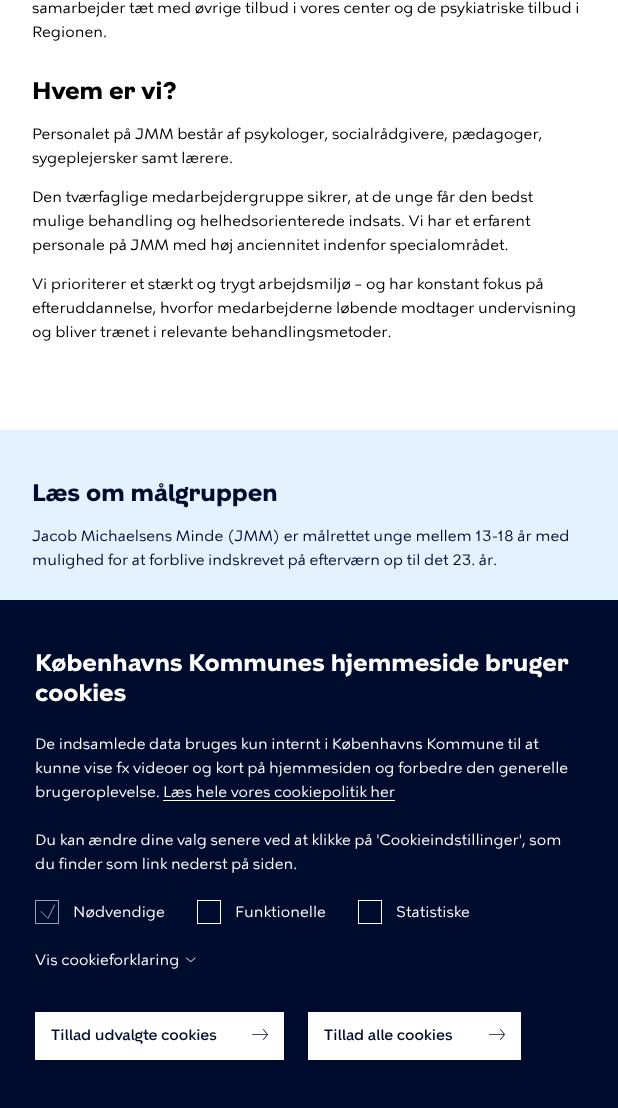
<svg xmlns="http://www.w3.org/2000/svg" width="618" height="1108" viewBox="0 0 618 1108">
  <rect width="100%" height="100%" fill="rgb(255,255,255)"/>
  <g font-family="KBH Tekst" font-size="15" fill="rgb(0,0,0)">
    <text>
      <tspan x="32" y="13">samarbejder tæt med øvrige tilbud i vores center og de psykiatriske tilbud i</tspan>
      <tspan x="32" y="37">Regionen.</tspan>
    </text>
  </g>
  <text x="32" y="99" font-family="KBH" font-size="24" font-weight="bold" fill="rgb(0,0,0)">Hvem er vi?</text>
  <g font-family="KBH Tekst" font-size="15" fill="rgb(0,0,0)">
    <text>
      <tspan x="32" y="139">Personalet på JMM består af psykologer, socialrådgivere, pædagoger,</tspan>
      <tspan x="32" y="163">sygeplejersker samt lærere.</tspan>
    </text>
    <text>
      <tspan x="32" y="202">Den tværfaglige medarbejdergruppe sikrer, at de unge får den bedst</tspan>
      <tspan x="32" y="226">mulige behandling og helhedsorienterede indsats. Vi har et erfarent</tspan>
      <tspan x="32" y="250">personale på JMM med høj anciennitet indenfor specialområdet.</tspan>
    </text>
    <text>
      <tspan x="32" y="289">Vi prioriterer et stærkt og trygt arbejdsmiljø – og har konstant fokus på</tspan>
      <tspan x="32" y="313">efteruddannelse, hvorfor medarbejderne løbende modtager undervisning</tspan>
      <tspan x="32" y="337">og bliver trænet i relevante behandlingsmetoder.</tspan>
    </text>
  </g>
  <rect x="0" y="430" width="618" height="170" fill="rgb(228,242,255)"/>
  <text x="32" y="501" font-family="KBH" font-size="24" font-weight="bold" fill="rgb(0,12,46)">Læs om målgruppen</text>
  <g font-family="KBH Tekst" font-size="15" fill="rgb(0,12,46)">
    <text>
      <tspan x="32" y="541">Jacob Michaelsens Minde (JMM) er målrettet unge mellem 13-18 år med</tspan>
      <tspan x="32" y="565">mulighed for at forblive indskrevet på efterværn op til det 23. år.</tspan>
    </text>
  </g>
  <rect x="0" y="600" width="618" height="508" fill="rgb(0,12,46)"/>
  <g font-family="KBH" font-size="24" font-weight="bold" fill="rgb(255,255,255)">
    <text>
      <tspan x="35" y="671">Københavns Kommunes hjemmeside bruger</tspan>
      <tspan x="35" y="701">cookies</tspan>
    </text>
  </g>
  <g font-family="KBH Tekst" font-size="15" fill="rgb(255,255,255)">
    <text>
      <tspan x="35" y="749">De indsamlede data bruges kun internt i Københavns Kommune til at</tspan>
      <tspan x="35" y="773">kunne vise fx videoer og kort på hjemmesiden og forbedre den generelle</tspan>
      <tspan x="35" y="797">brugeroplevelse.</tspan>
    </text>
  </g>
  <rect x="163" y="800" width="232" height="1" fill="rgb(255,255,255)"/>
  <g font-family="KBH Tekst" font-size="15" fill="rgb(255,255,255)">
    <text x="163" y="797">Læs hele vores cookiepolitik her</text>
    <text>
      <tspan x="35" y="845">Du kan ændre dine valg senere ved at klikke på 'Cookieindstillinger', som</tspan>
      <tspan x="35" y="869">du finder som link nederst på siden.</tspan>
    </text>
  </g>
  <rect x="35.5" y="900.5" width="23" height="23" fill="none" stroke="rgb(153,158,171)"/>
  <path d="M41 911.5L48 918.5L54.5 905" fill="none" stroke="rgb(153,158,171)" stroke-linecap="round"/>
  <text x="73" y="917" font-family="KBH Tekst" font-size="15" fill="rgb(255,255,255)">Nødvendige</text>
  <rect x="197.5" y="900.5" width="23" height="23" fill="none" stroke="rgb(255,255,255)"/>
  <text x="235" y="917" font-family="KBH Tekst" font-size="15" fill="rgb(255,255,255)">Funktionelle</text>
  <rect x="358.5" y="900.5" width="23" height="23" fill="none" stroke="rgb(255,255,255)"/>
  <g font-family="KBH Tekst" font-size="15" fill="rgb(255,255,255)">
    <text x="396" y="917">Statistiske</text>
    <text x="35" y="965">Vis cookieforklaring</text>
  </g>
  <image x="185" y="957" width="11" height="5" href="pic1.png"/>
  <rect x="35" y="1012" width="249" height="48" fill="rgb(255,255,255)"/>
  <text x="51" y="1040" font-family="KBH" font-size="15" font-weight="500" fill="rgb(0,12,46)">Tillad udvalgte cookies</text>
  <image x="252" y="1029" width="16" height="11" href="pic2.png"/>
  <rect x="308" y="1012" width="213" height="48" fill="rgb(255,255,255)"/>
  <text x="324" y="1040" font-family="KBH" font-size="15" font-weight="500" fill="rgb(0,12,46)">Tillad alle cookies</text>
  <image x="489" y="1029" width="16" height="11" href="pic2.png"/>
</svg>
